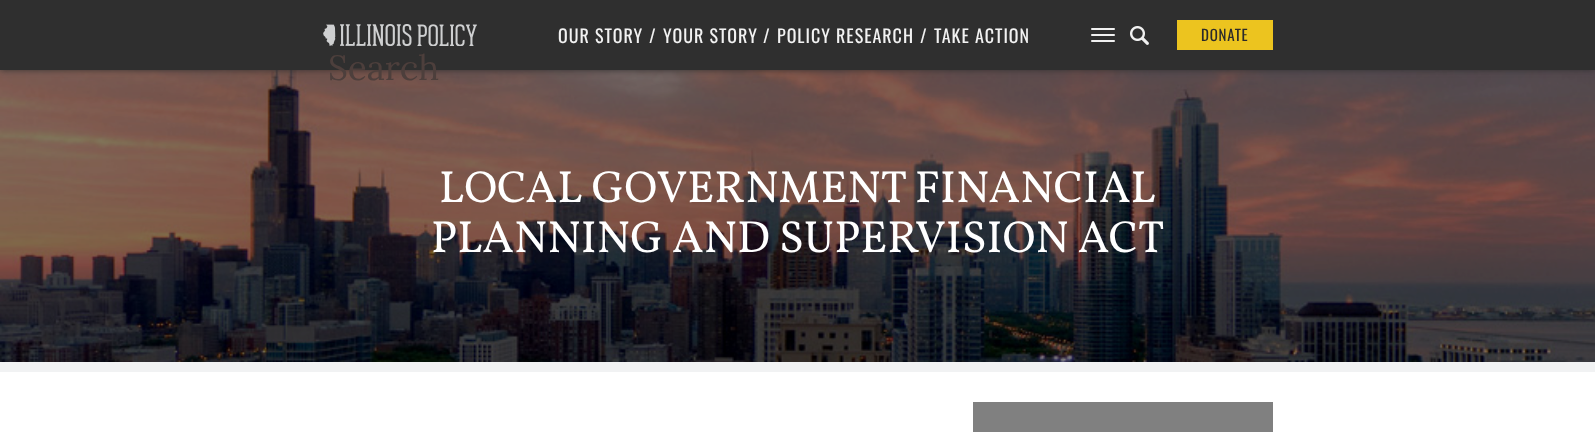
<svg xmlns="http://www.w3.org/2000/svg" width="1595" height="432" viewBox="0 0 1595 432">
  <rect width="100%" height="100%" fill="rgb(255,255,255)"/>
  <image x="0" y="70" width="1595" height="292" href="pic4.png"/>
  <rect x="0" y="0" width="1595" height="70" fill="rgba(47,47,47,0.9)" filter="blur(3px)"/>
  <rect x="0" y="0" width="1595" height="70" fill="rgb(47,47,47)"/>
  <text x="328" y="80" font-family="Lora" font-size="35" fill="rgb(77,63,60)">Search</text>
  <image x="323" y="24" width="154" height="22" href="pic1.png"/>
  <g font-family="Oswald" font-size="18" letter-spacing="1" fill="rgb(242,242,242)">
    <text x="558" y="43">OUR STORY</text>
    <text x="649" y="43">/</text>
    <text x="663" y="43">YOUR STORY</text>
    <text x="763" y="43">/</text>
    <text x="777" y="43">POLICY RESEARCH</text>
    <text x="920" y="43">/</text>
    <text x="934" y="43">TAKE ACTION</text>
  </g>
  <image x="1091" y="28" width="24" height="14" href="pic2.png"/>
  <image x="1130" y="26" width="19" height="19" href="pic3.png"/>
  <rect x="1177" y="20" width="96" height="30" fill="rgb(236,196,31)"/>
  <text x="1201" y="41" font-family="Oswald" font-size="15" letter-spacing="0.75" fill="rgb(43,42,43)">DONATE</text>
  <rect x="0" y="362" width="1595" height="10" fill="rgb(241,242,243)"/>
  <g font-family="Vollkorn" font-size="45" fill="rgb(255,255,255)">
    <text x="439" y="202">LOCAL GOVERNMENT FINANCIAL</text>
    <text x="431" y="252">PLANNING AND SUPERVISION ACT</text>
  </g>
  <rect x="973" y="402" width="300" height="30" fill="rgb(128,128,128)"/>
</svg>
